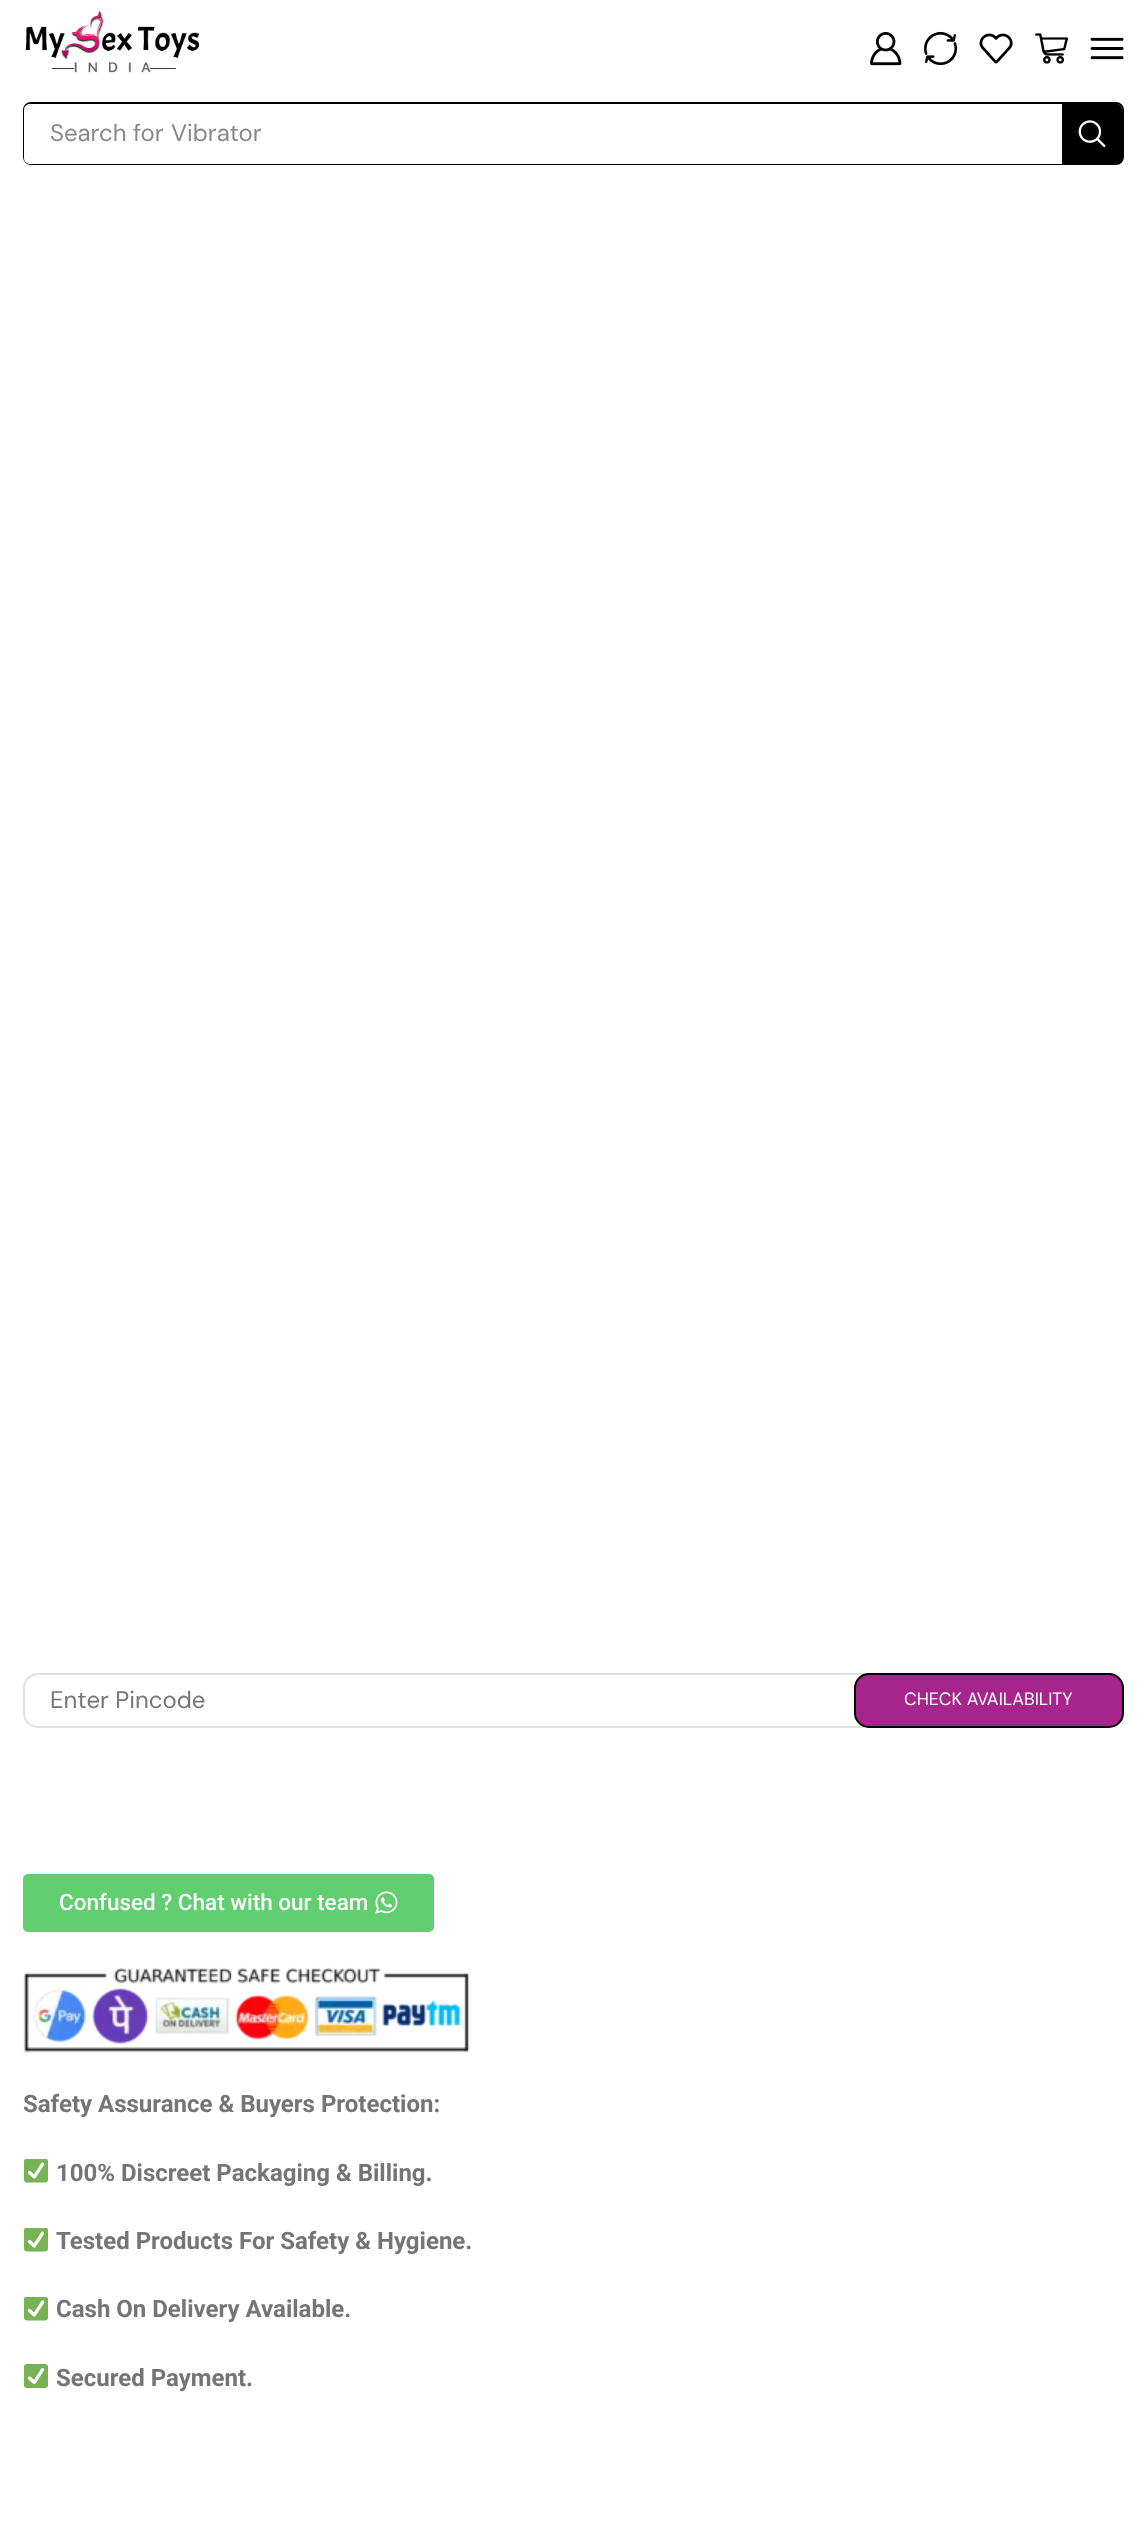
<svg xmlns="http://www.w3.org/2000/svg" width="1146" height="2531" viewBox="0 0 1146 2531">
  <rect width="100%" height="100%" fill="rgb(255,255,255)"/>
  <image x="25" y="11" width="175" height="62" href="pic1.png"/>
  <image x="870" y="32" width="32" height="34" href="pic2.png"/>
  <image x="924" y="31" width="34" height="35" href="pic3.png"/>
  <image x="979" y="33" width="34" height="31" href="pic4.png"/>
  <image x="1035" y="33" width="34" height="31" href="pic5.png"/>
  <image x="1090" y="37" width="34" height="23" href="pic6.png"/>
  <rect x="24" y="103" width="1099" height="61" rx="7" fill="none" stroke="rgb(0,0,0)" stroke-width="2"/>
  <path d="M30 104H1062V164H30C26.5 164 24 161.5 24 158V110C24 106.5 26.5 104 30 104Z" fill="rgb(255,255,255)"/>
  <g font-family="DM Sans" font-size="24" fill="rgb(136,136,136)">
    <text x="50" y="141">Search for</text>
    <text x="171" y="141">Vibrator</text>
  </g>
  <path d="M1062 104H1116C1119.5 104 1122 106.5 1122 110V158C1122 161.5 1119.5 164 1116 164H1062Z" fill="rgb(0,0,0)"/>
  <image x="1078" y="120" width="28" height="28" href="pic7.png"/>
  <rect x="24" y="1674" width="1099" height="53" rx="14" fill="none" stroke="rgb(225,225,225)" stroke-width="2"/>
  <text x="50" y="1708" font-family="DM Sans" font-size="24" fill="rgb(117,117,117)">Enter Pincode</text>
  <rect x="855" y="1674" width="268" height="53" rx="14" fill="rgb(168,36,141)" stroke="rgb(0,0,0)" stroke-width="2"/>
  <text x="904" y="1705" font-family="DM Sans" font-size="17.75" fill="rgb(255,255,255)">CHECK AVAILABILITY</text>
  <rect x="23" y="1874" width="411" height="58" rx="5" fill="rgb(97,206,112)"/>
  <text x="59" y="1910" font-family="Roboto" font-size="22.5" font-weight="500" fill="rgb(255,255,255)">Confused ? Chat with our team</text>
  <image x="375" y="1891" width="23" height="23" href="pic8.png"/>
  <image x="23" y="1967" width="447" height="86" href="pic9.png"/>
  <text x="23" y="2112" font-family="Roboto" font-size="24" font-weight="bold" fill="rgb(117,117,117)">Safety Assurance &amp; Buyers Protection:</text>
  <image x="24" y="2159" width="24" height="24" href="pic10.png"/>
  <text x="56" y="2181" font-family="Roboto" font-size="24" font-weight="bold" fill="rgb(117,117,117)">100% Discreet Packaging &amp; Billing.</text>
  <image x="24" y="2228" width="24" height="24" href="pic10.png"/>
  <text x="56" y="2249" font-family="Roboto" font-size="24" font-weight="bold" fill="rgb(117,117,117)">Tested Products For Safety &amp; Hygiene.</text>
  <image x="24" y="2297" width="24" height="24" href="pic10.png"/>
  <text x="56" y="2317" font-family="Roboto" font-size="24" font-weight="bold" fill="rgb(117,117,117)">Cash On Delivery Available.</text>
  <image x="24" y="2364" width="24" height="24" href="pic11.png"/>
  <text x="56" y="2386" font-family="Roboto" font-size="24" font-weight="bold" fill="rgb(117,117,117)">Secured Payment.</text>
</svg>
